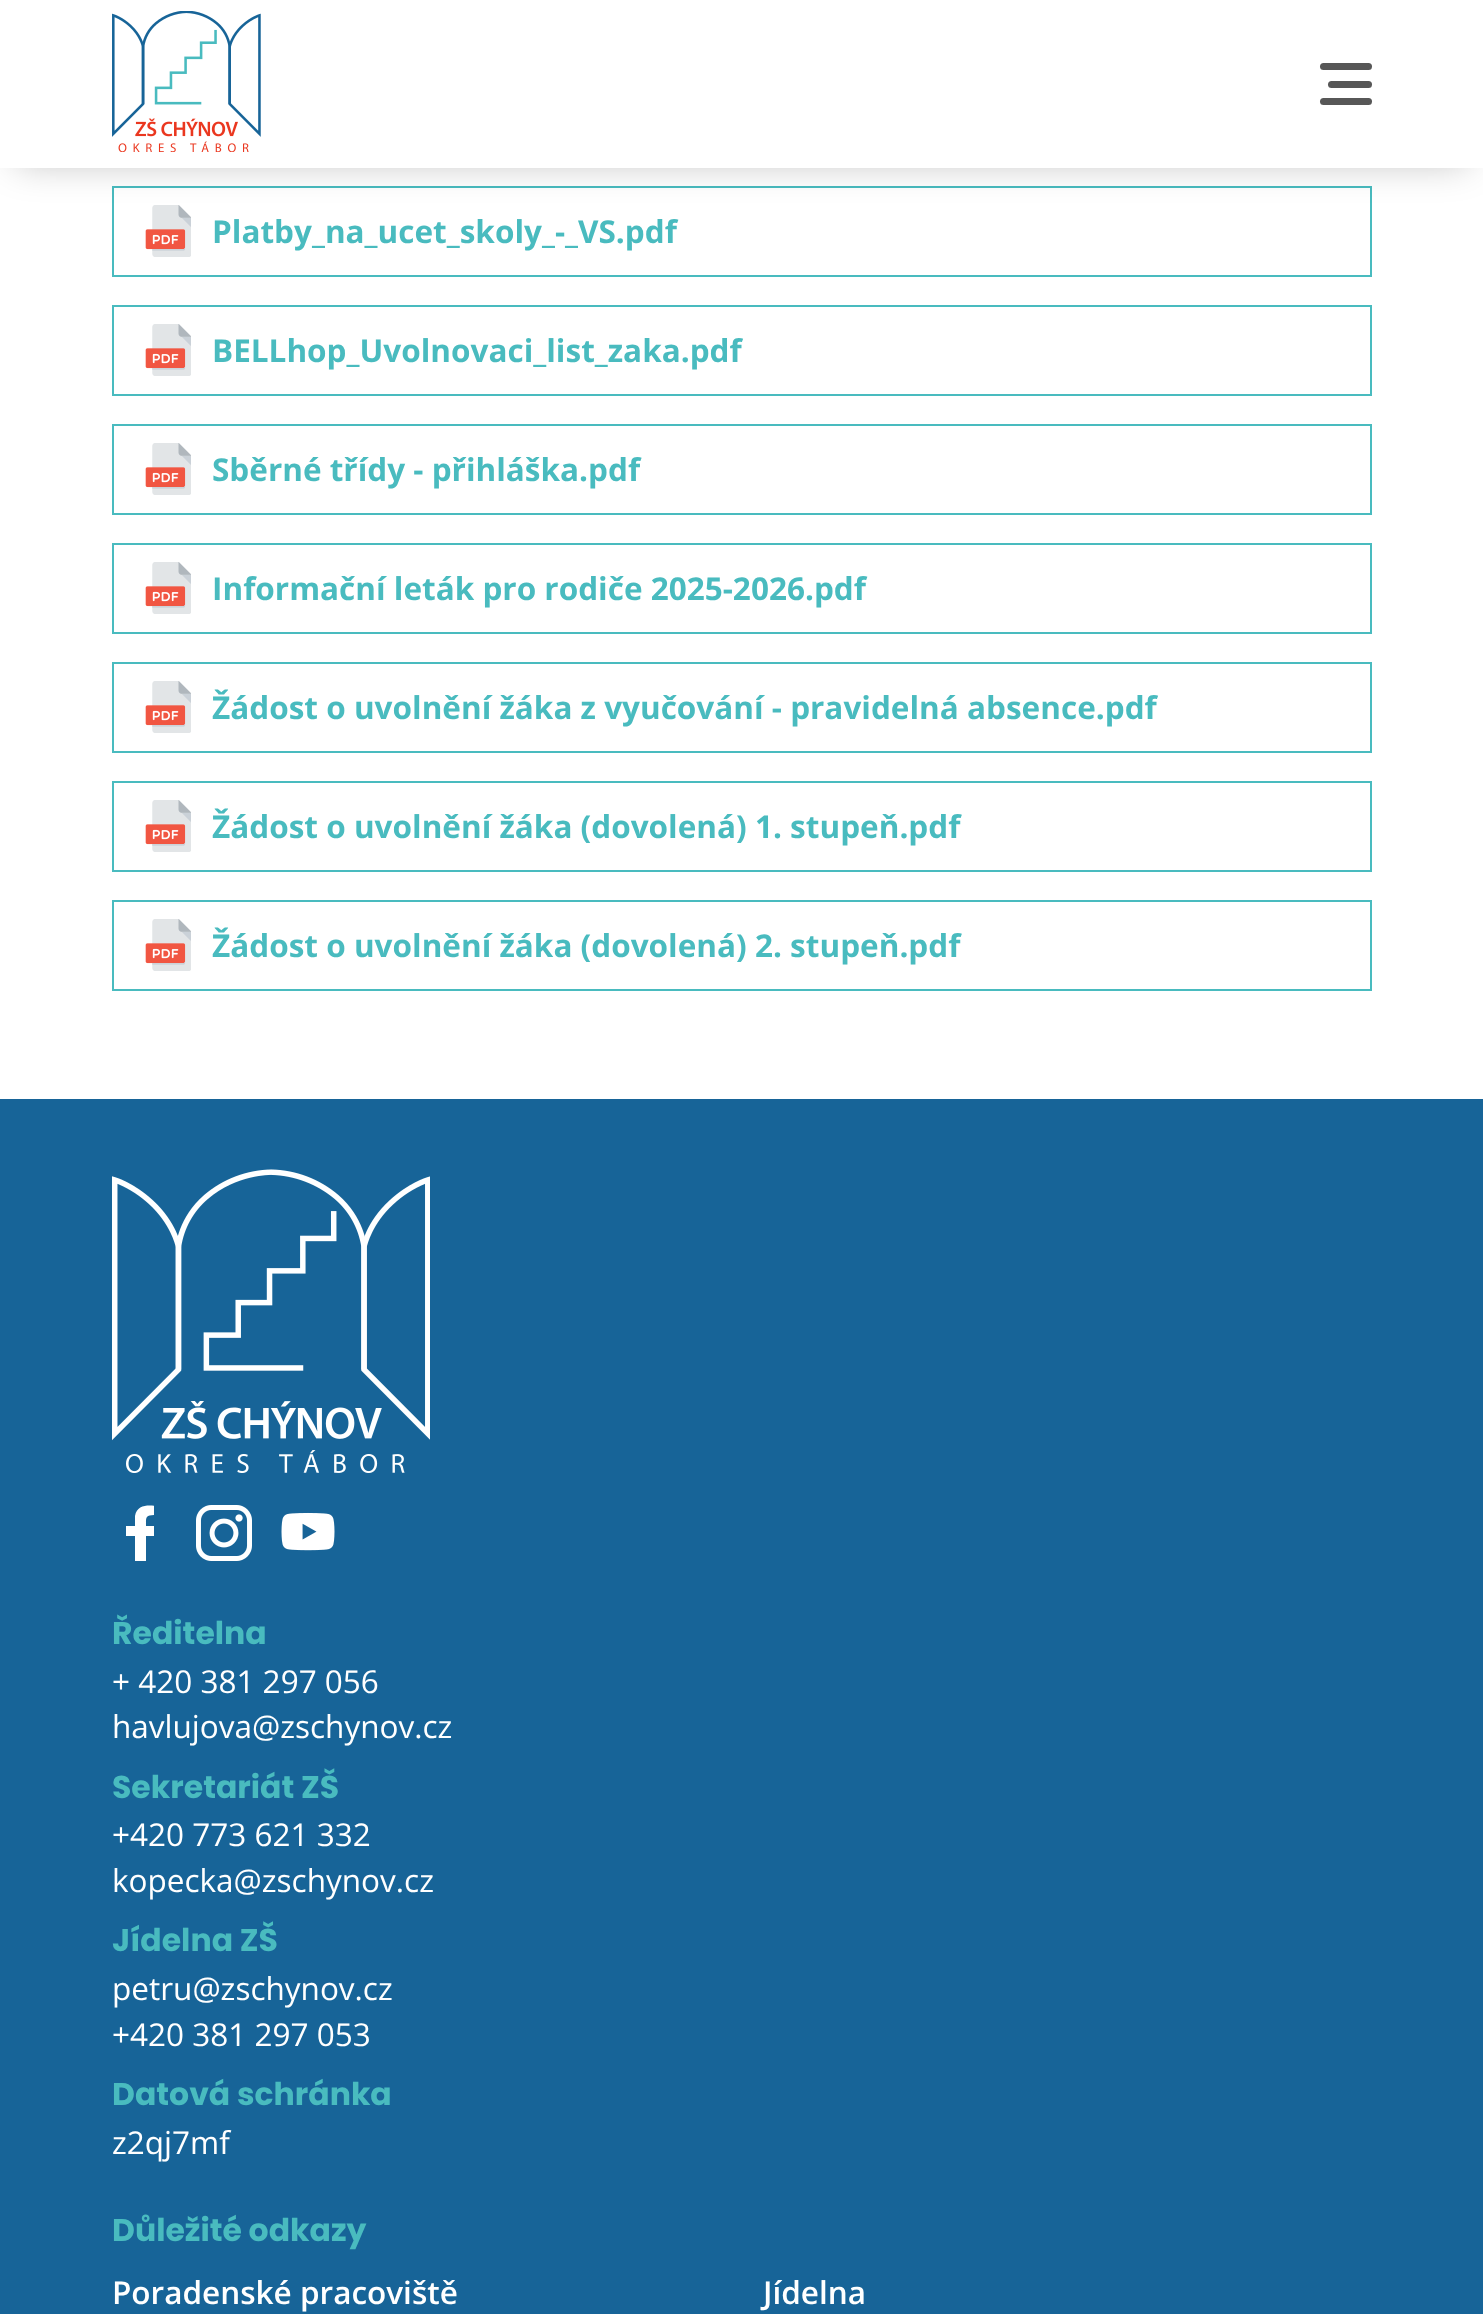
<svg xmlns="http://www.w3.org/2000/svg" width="1483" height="2314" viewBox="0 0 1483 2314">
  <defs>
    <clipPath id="clip1"><rect x="126" y="1505" width="28" height="56"/></clipPath>
  </defs>
  <rect width="100%" height="100%" fill="rgb(255,255,255)"/>
  <rect x="113" y="187" width="1258" height="89" fill="none" stroke="rgb(73,187,191)" stroke-width="2"/>
  <image x="145" y="205" width="46" height="52" href="pic2.png"/>
  <rect x="16" y="26" width="1452" height="137" fill="rgba(0,0,0,0.25)" filter="blur(18.5px)"/>
  <rect x="0" y="0" width="1483" height="168" fill="rgb(255,255,255)"/>
  <image x="112" y="11" width="149" height="141" href="pic1.png"/>
  <rect x="1320" y="63" width="52" height="7" rx="3.5" fill="rgb(87,87,87)"/>
  <rect x="1328" y="81" width="44" height="7" rx="3.5" fill="rgb(87,87,87)"/>
  <rect x="1320" y="98" width="52" height="7" rx="3.5" fill="rgb(87,87,87)"/>
  <text x="212" y="243" font-family="Open Sans" font-size="31.5" font-weight="bold" fill="rgb(73,187,191)">Platby_na_ucet_skoly_-_VS.pdf</text>
  <rect x="113" y="306" width="1258" height="89" fill="none" stroke="rgb(73,187,191)" stroke-width="2"/>
  <image x="145" y="324" width="46" height="52" href="pic2.png"/>
  <text x="212" y="362" font-family="Open Sans" font-size="31.5" font-weight="bold" fill="rgb(73,187,191)">BELLhop_Uvolnovaci_list_zaka.pdf</text>
  <rect x="113" y="425" width="1258" height="89" fill="none" stroke="rgb(73,187,191)" stroke-width="2"/>
  <image x="145" y="443" width="46" height="52" href="pic2.png"/>
  <text x="212" y="481" font-family="Open Sans" font-size="31.5" font-weight="bold" fill="rgb(73,187,191)">Sběrné třídy - přihláška.pdf</text>
  <rect x="113" y="544" width="1258" height="89" fill="none" stroke="rgb(73,187,191)" stroke-width="2"/>
  <image x="145" y="562" width="46" height="52" href="pic2.png"/>
  <text x="212" y="600" font-family="Open Sans" font-size="31.5" font-weight="bold" fill="rgb(73,187,191)">Informační leták pro rodiče 2025-2026.pdf</text>
  <rect x="113" y="663" width="1258" height="89" fill="none" stroke="rgb(73,187,191)" stroke-width="2"/>
  <image x="145" y="681" width="46" height="52" href="pic2.png"/>
  <text x="212" y="719" font-family="Open Sans" font-size="31.5" font-weight="bold" fill="rgb(73,187,191)">Žádost o uvolnění žáka z vyučování - pravidelná absence.pdf</text>
  <rect x="113" y="782" width="1258" height="89" fill="none" stroke="rgb(73,187,191)" stroke-width="2"/>
  <image x="145" y="800" width="46" height="52" href="pic2.png"/>
  <text x="212" y="838" font-family="Open Sans" font-size="31.5" font-weight="bold" fill="rgb(73,187,191)">Žádost o uvolnění žáka (dovolená) 1. stupeň.pdf</text>
  <rect x="113" y="901" width="1258" height="89" fill="none" stroke="rgb(73,187,191)" stroke-width="2"/>
  <image x="145" y="919" width="46" height="52" href="pic2.png"/>
  <text x="212" y="957" font-family="Open Sans" font-size="31.5" font-weight="bold" fill="rgb(73,187,191)">Žádost o uvolnění žáka (dovolená) 2. stupeň.pdf</text>
  <rect x="0" y="1099" width="1483" height="1215" fill="rgb(23,100,152)"/>
  <image x="112" y="1169" width="318" height="304" href="pic3.png"/>
  <g clip-path="url(#clip1)">
    <path d="M154 1536L155 1526H146C146 1517 145 1515 156 1515V1506C147 1505 137 1505 135 1516V1526H126V1536H135V1561H146V1536Z" fill="rgb(255,255,255)"/>
  </g>
  <image x="196" y="1505" width="56" height="56" href="pic4.png"/>
  <image x="281" y="1512" width="54" height="39" href="pic5.png"/>
  <text x="112" y="1644" font-family="Poppins" font-size="31.5" font-weight="bold" fill="rgb(73,187,191)">Ředitelna</text>
  <g font-family="Open Sans" font-size="31.5" fill="rgb(255,255,255)">
    <text>
      <tspan x="112" y="1693">+ 420 381 297 056</tspan>
      <tspan x="112" y="1738">havlujova@zschynov.cz</tspan>
    </text>
  </g>
  <text x="112" y="1798" font-family="Poppins" font-size="31.5" font-weight="bold" fill="rgb(73,187,191)">Sekretariát ZŠ</text>
  <g font-family="Open Sans" font-size="31.5" fill="rgb(255,255,255)">
    <text>
      <tspan x="112" y="1846">+420 773 621 332</tspan>
      <tspan x="112" y="1892">kopecka@zschynov.cz</tspan>
    </text>
  </g>
  <text x="112" y="1951" font-family="Poppins" font-size="31.5" font-weight="bold" fill="rgb(73,187,191)">Jídelna ZŠ</text>
  <g font-family="Open Sans" font-size="31.5" fill="rgb(255,255,255)">
    <text>
      <tspan x="112" y="2000">petru@zschynov.cz</tspan>
      <tspan x="112" y="2046">+420 381 297 053</tspan>
    </text>
  </g>
  <text x="112" y="2105" font-family="Poppins" font-size="31.5" font-weight="bold" fill="rgb(73,187,191)">Datová schránka</text>
  <text x="112" y="2154" font-family="Open Sans" font-size="31.5" fill="rgb(255,255,255)">z2qj7mf</text>
  <text x="112" y="2241" font-family="Poppins" font-size="31.5" font-weight="bold" fill="rgb(73,187,191)">Důležité odkazy</text>
  <g font-family="Open Sans" font-size="31.5" font-weight="600" fill="rgb(255,255,255)">
    <text x="112" y="2304">Poradenské pracoviště</text>
    <text x="763" y="2304">Jídelna</text>
  </g>
</svg>
